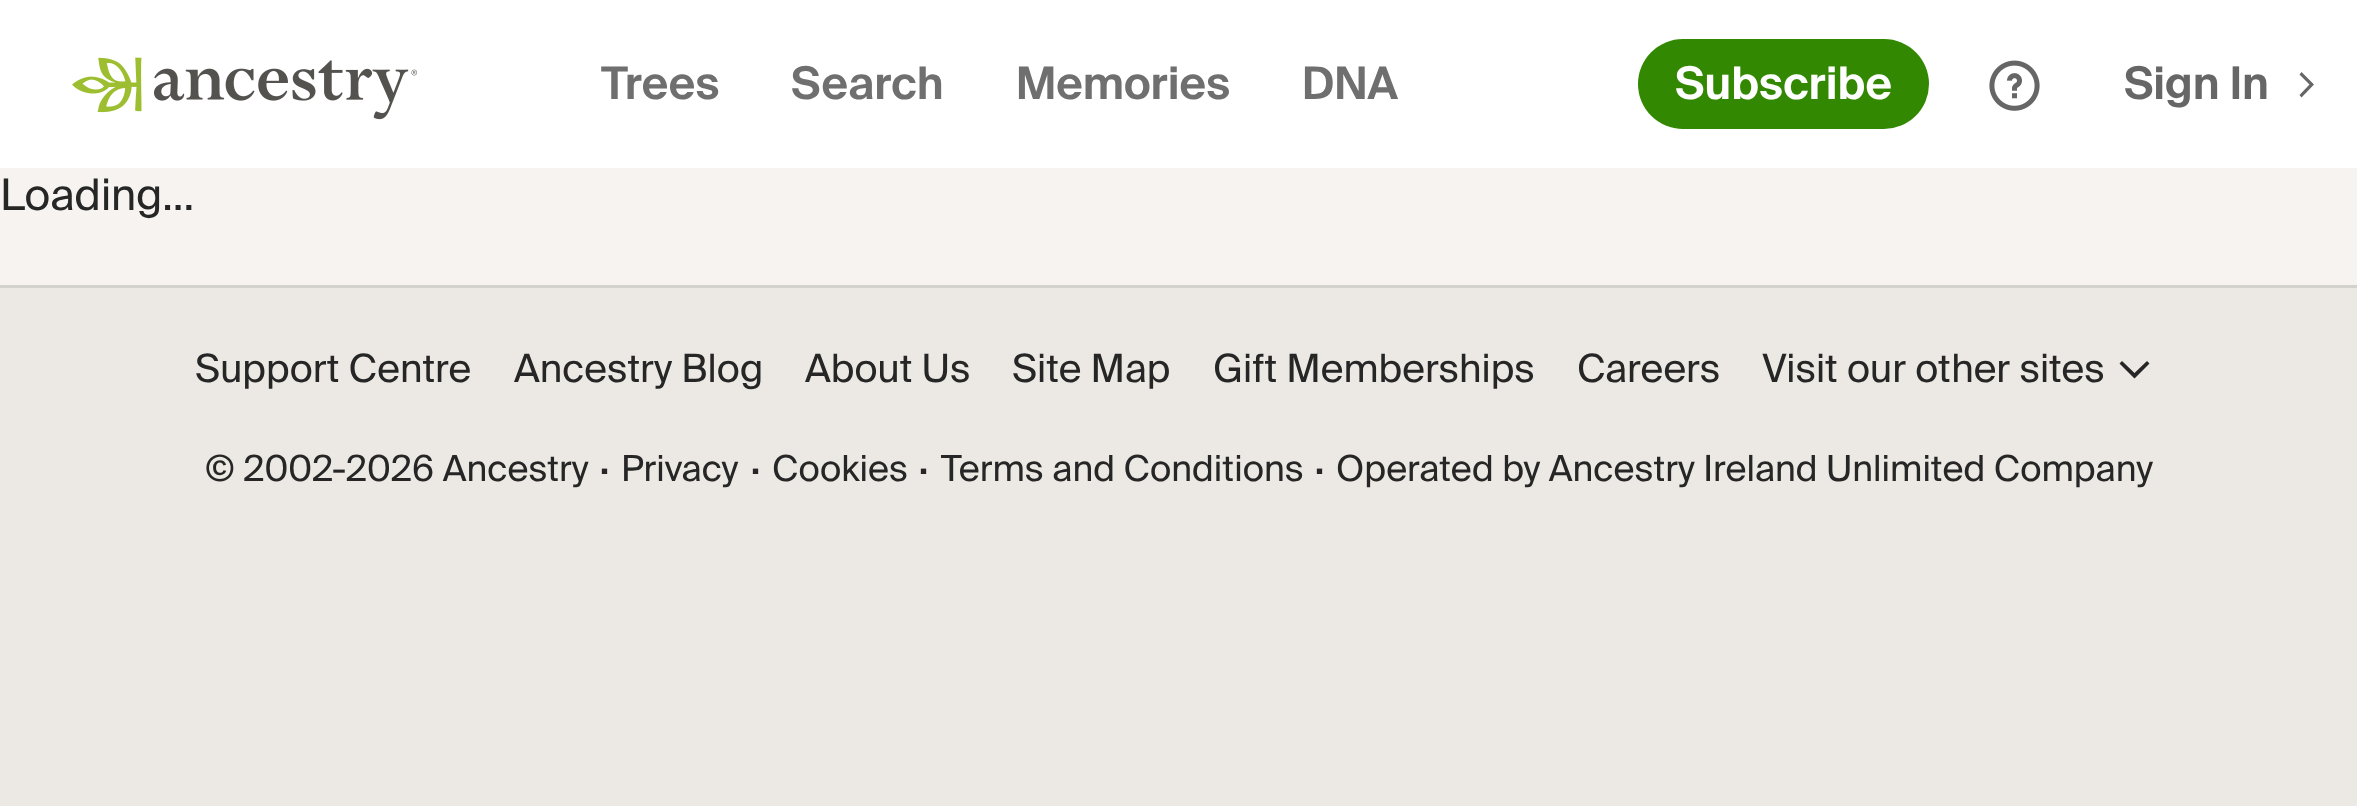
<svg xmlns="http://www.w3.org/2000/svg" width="2357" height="806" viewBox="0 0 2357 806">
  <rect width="100%" height="100%" fill="rgb(236,233,228)"/>
  <rect x="0" y="168" width="2357" height="117" fill="rgb(246,243,240)"/>
  <rect x="0" y="0" width="2357" height="168" fill="rgb(255,255,255)"/>
  <image x="72" y="57" width="345" height="63" href="pic1.png"/>
  <g font-family="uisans" font-size="45" font-weight="600" fill="rgb(111,111,111)">
    <text x="601" y="99">Trees</text>
    <text x="791" y="99">Search</text>
    <text x="1016" y="99">Memories</text>
    <text x="1302" y="99">DNA</text>
  </g>
  <rect x="1638" y="39" width="291" height="90" rx="45" fill="rgb(50,136,0)"/>
  <text x="1675" y="99" font-family="uisans" font-size="45" font-weight="600" fill="rgb(255,255,255)">Subscribe</text>
  <image x="1989" y="60" width="51" height="51" href="pic2.png"/>
  <text x="2124" y="99" font-family="uisans" font-size="45" font-weight="600" fill="rgb(102,102,102)">Sign In</text>
  <path d="M2314 84.5L2301.5 97.5L2299.5 95L2309.5 84.5L2299.5 74.5L2301.5 72Z" fill="rgb(102,102,102)"/>
  <text x="0" y="210" font-family="uisans" font-size="43.5" fill="rgb(38,38,38)">Loading...</text>
  <rect x="0" y="285" width="2357" height="3" fill="rgb(212,210,205)"/>
  <g font-family="uisans" font-size="39" fill="rgb(38,38,38)">
    <text x="195" y="382">Support Centre</text>
    <text x="514" y="382">Ancestry Blog</text>
    <text x="805" y="382">About Us</text>
    <text x="1012" y="382">Site Map</text>
    <text x="1213" y="382">Gift Memberships</text>
    <text x="1577" y="382">Careers</text>
    <text x="1762" y="382">Visit our other sites</text>
  </g>
  <path d="M2134.5 378.5L2119.5 363.5L2122 361L2134.5 373L2147 361L2149.5 363.5Z" fill="rgb(38,38,38)"/>
  <text x="205" y="481" font-family="uisans" font-size="36" fill="rgb(38,38,38)">© 2002-2026 Ancestry</text>
  <text x="600" y="481" font-family="uisans" font-size="36" font-weight="600" fill="rgb(38,38,38)">·</text>
  <text x="621" y="481" font-family="uisans" font-size="36" fill="rgb(38,38,38)">Privacy</text>
  <text x="751" y="481" font-family="uisans" font-size="36" font-weight="600" fill="rgb(38,38,38)">·</text>
  <text x="772" y="481" font-family="uisans" font-size="36" fill="rgb(38,38,38)">Cookies</text>
  <text x="919" y="481" font-family="uisans" font-size="36" font-weight="600" fill="rgb(38,38,38)">·</text>
  <text x="941" y="481" font-family="uisans" font-size="36" fill="rgb(38,38,38)">Terms and Conditions</text>
  <text x="1315" y="481" font-family="uisans" font-size="36" font-weight="600" fill="rgb(38,38,38)">·</text>
  <text x="1336" y="481" font-family="uisans" font-size="36" fill="rgb(38,38,38)">Operated by Ancestry Ireland Unlimited Company</text>
</svg>
